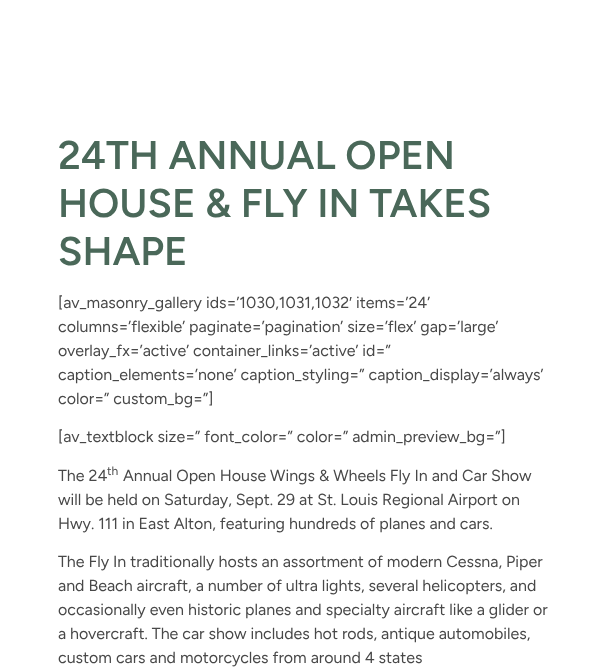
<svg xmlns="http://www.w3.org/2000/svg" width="616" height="669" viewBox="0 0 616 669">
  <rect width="100%" height="100%" fill="rgb(255,255,255)"/>
  <g font-family="Figtree" font-size="40" font-weight="600" fill="rgb(74,104,89)">
    <text>
      <tspan x="58" y="169">24TH ANNUAL OPEN</tspan>
      <tspan x="58" y="217">HOUSE &amp; FLY IN TAKES</tspan>
      <tspan x="58" y="265">SHAPE</tspan>
    </text>
  </g>
  <text x="58" y="308" font-family="Figtree" font-size="16" fill="rgb(72,72,72)">[av_masonry_gallery ids=’1030,1031,1032</text>
  <text x="349" y="308" font-family="Liberation Sans" font-size="16" fill="rgb(72,72,72)">′</text>
  <g font-family="Figtree" font-size="16" fill="rgb(72,72,72)">
    <text x="356" y="308">items=’24’</text>
    <text>
      <tspan x="58" y="332">columns=’flexible’ paginate=’pagination’ size=’flex’ gap=’large’</tspan>
      <tspan x="58" y="356">overlay_fx=’active’ container_links=’active’ id=”</tspan>
      <tspan x="58" y="380">caption_elements=’none’ caption_styling=” caption_display=’always’</tspan>
      <tspan x="58" y="404">color=” custom_bg=”]</tspan>
    </text>
    <text x="58" y="442">[av_textblock size=” font_color=” color=” admin_preview_bg=”]</text>
    <text x="58" y="481">The 24</text>
  </g>
  <text x="107" y="475" font-family="Figtree" font-size="12" fill="rgb(72,72,72)">th</text>
  <g font-family="Figtree" font-size="16" fill="rgb(72,72,72)">
    <text x="123" y="481">Annual Open House Wings &amp; Wheels Fly In and Car Show</text>
    <text>
      <tspan x="58" y="505">will be held on Saturday, Sept. 29 at St. Louis Regional Airport on</tspan>
      <tspan x="58" y="529">Hwy. 111 in East Alton, featuring hundreds of planes and cars.</tspan>
    </text>
    <text>
      <tspan x="58" y="567">The Fly In traditionally hosts an assortment of modern Cessna, Piper</tspan>
      <tspan x="58" y="591">and Beach aircraft, a number of ultra lights, several helicopters, and</tspan>
      <tspan x="58" y="615">occasionally even historic planes and specialty aircraft like a glider or</tspan>
      <tspan x="58" y="639">a hovercraft. The car show includes hot rods, antique automobiles,</tspan>
      <tspan x="58" y="663">custom cars and motorcycles from around 4 states</tspan>
    </text>
  </g>
</svg>
